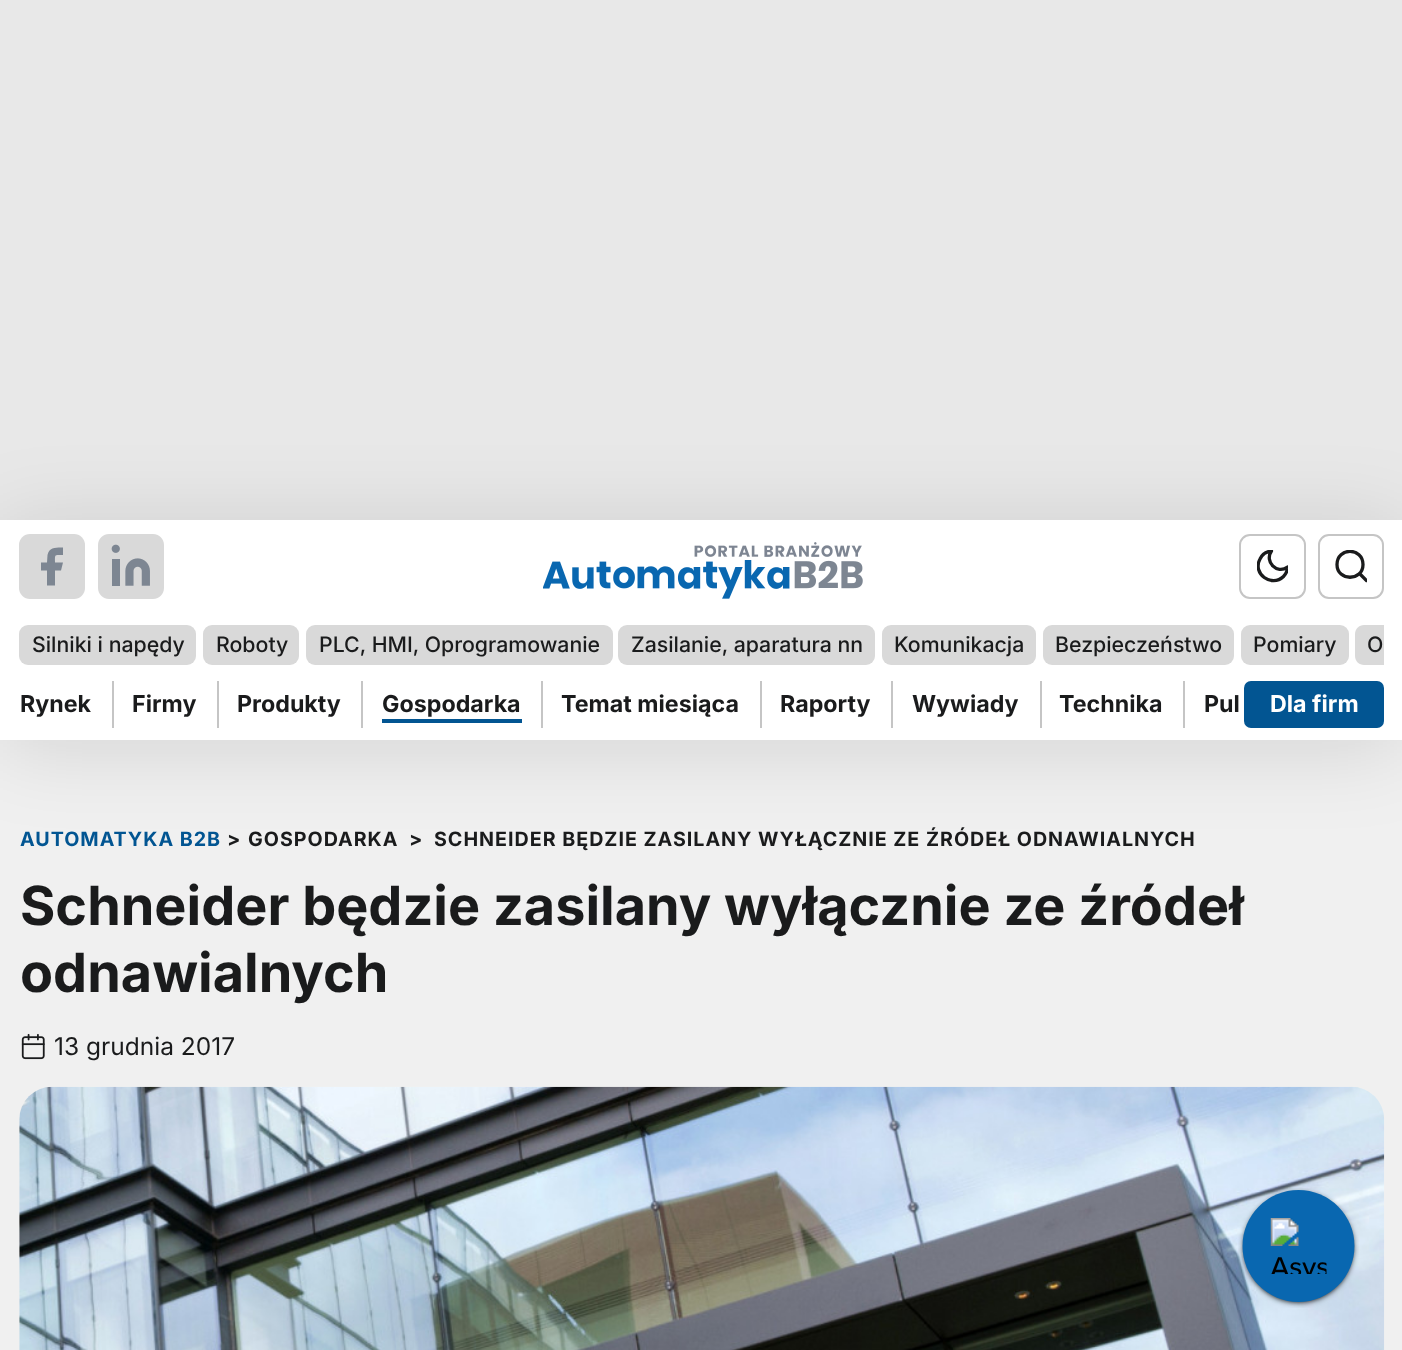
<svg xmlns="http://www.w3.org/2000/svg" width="1402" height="1350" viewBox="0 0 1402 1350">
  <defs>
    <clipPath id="clip1"><rect x="1257" y="550" width="31" height="33"/></clipPath>
    <clipPath id="clip2"><rect x="1335" y="550" width="32" height="33"/></clipPath>
  </defs>
  <rect width="100%" height="100%" fill="rgb(240,240,240)"/>
  <rect x="0" y="0" width="1402" height="520" fill="rgb(232,232,232)"/>
  <rect x="0" y="527" width="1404" height="220" fill="rgba(0,0,0,0.12)" filter="blur(42px)"/>
  <rect x="0" y="520" width="1402" height="220" fill="rgb(255,255,255)"/>
  <rect x="19" y="534" width="66" height="65" rx="11" fill="rgb(217,217,217)"/>
  <path d="M63 547.5C56.5 547.5 49 547 47.5 555L47 562.5H41V570.5H47V585.5H55V570.5H61L63 562.5H55C55 554 54 555 63 555Z" fill="rgb(125,134,146)"/>
  <image x="98" y="534" width="66" height="65" href="pic1.png"/>
  <image x="543" y="542" width="320" height="57" href="pic2.png"/>
  <rect x="1240" y="535" width="65" height="63" rx="10" fill="none" stroke="rgb(197,197,197)" stroke-width="2"/>
  <g clip-path="url(#clip1)">
    <path d="M1287.5 567C1287.5 570.5 1286 574 1283.5 576.5C1271.5 588 1252 573.5 1260 559C1262 554.5 1266.5 551.5 1271.5 551C1264 561.5 1277 575 1287.5 567Z" fill="none" stroke="rgb(26,27,28)" stroke-width="3.3" stroke-linecap="round" stroke-linejoin="round"/>
  </g>
  <rect x="1319" y="535" width="64" height="63" rx="10" fill="none" stroke="rgb(197,197,197)" stroke-width="2"/>
  <g clip-path="url(#clip2)">
    <path d="M1366.5 580.5L1359.5 573.5M1363 564.5C1363 581.5 1337 581.5 1337 564.5C1337 547 1363 547 1363 564.5Z" fill="none" stroke="rgb(26,27,28)" stroke-width="3.3" stroke-linecap="round" stroke-linejoin="round"/>
  </g>
  <rect x="19" y="625" width="177" height="40" rx="9" fill="rgb(217,217,217)"/>
  <text x="32" y="652" font-family="Inter" font-size="21.3" font-weight="500" fill="rgb(26,27,28)">Silniki i napędy</text>
  <rect x="203" y="625" width="96" height="40" rx="9" fill="rgb(217,217,217)"/>
  <text x="216" y="652" font-family="Inter" font-size="21.3" font-weight="500" fill="rgb(26,27,28)">Roboty</text>
  <rect x="306" y="625" width="307" height="40" rx="9" fill="rgb(217,217,217)"/>
  <text x="319" y="652" font-family="Inter" font-size="21.3" font-weight="500" fill="rgb(26,27,28)">PLC, HMI, Oprogramowanie</text>
  <rect x="618" y="625" width="257" height="40" rx="9" fill="rgb(217,217,217)"/>
  <text x="631" y="652" font-family="Inter" font-size="21.3" font-weight="500" fill="rgb(26,27,28)">Zasilanie, aparatura nn</text>
  <rect x="882" y="625" width="154" height="40" rx="9" fill="rgb(217,217,217)"/>
  <text x="894" y="652" font-family="Inter" font-size="21.3" font-weight="500" fill="rgb(26,27,28)">Komunikacja</text>
  <rect x="1043" y="625" width="191" height="40" rx="9" fill="rgb(217,217,217)"/>
  <text x="1055" y="652" font-family="Inter" font-size="21.3" font-weight="500" fill="rgb(26,27,28)">Bezpieczeństwo</text>
  <rect x="1241" y="625" width="108" height="40" rx="9" fill="rgb(217,217,217)"/>
  <text x="1253" y="652" font-family="Inter" font-size="21.3" font-weight="500" fill="rgb(26,27,28)">Pomiary</text>
  <path d="M1364 625H1384V665H1364C1359 665 1355 661 1355 656V634C1355 629 1359 625 1364 625Z" fill="rgb(217,217,217)"/>
  <text x="1367" y="652" font-family="Inter" font-size="21.3" font-weight="500" fill="rgb(26,27,28)">O</text>
  <text x="20" y="712" font-family="Inter" font-size="23.25" font-weight="bold" fill="rgb(26,27,28)">Rynek</text>
  <rect x="112" y="681" width="2" height="47" fill="rgb(197,197,197)"/>
  <text x="132" y="712" font-family="Inter" font-size="23.25" font-weight="bold" fill="rgb(26,27,28)">Firmy</text>
  <rect x="217" y="681" width="2" height="47" fill="rgb(197,197,197)"/>
  <text x="237" y="712" font-family="Inter" font-size="23.25" font-weight="bold" fill="rgb(26,27,28)">Produkty</text>
  <rect x="361" y="681" width="2" height="47" fill="rgb(197,197,197)"/>
  <text x="382" y="712" font-family="Inter" font-size="23.25" font-weight="bold" fill="rgb(26,27,28)">Gospodarka</text>
  <rect x="382" y="719" width="140" height="4" fill="rgb(2,85,146)"/>
  <rect x="541" y="681" width="2" height="47" fill="rgb(197,197,197)"/>
  <text x="561" y="712" font-family="Inter" font-size="23.25" font-weight="bold" fill="rgb(26,27,28)">Temat miesiąca</text>
  <rect x="760" y="681" width="2" height="47" fill="rgb(197,197,197)"/>
  <text x="780" y="712" font-family="Inter" font-size="23.25" font-weight="bold" fill="rgb(26,27,28)">Raporty</text>
  <rect x="891" y="681" width="2" height="47" fill="rgb(197,197,197)"/>
  <text x="912" y="712" font-family="Inter" font-size="23.25" font-weight="bold" fill="rgb(26,27,28)">Wywiady</text>
  <rect x="1040" y="681" width="2" height="47" fill="rgb(197,197,197)"/>
  <text x="1059" y="712" font-family="Inter" font-size="23.25" font-weight="bold" fill="rgb(26,27,28)">Technika</text>
  <rect x="1183" y="681" width="2" height="47" fill="rgb(197,197,197)"/>
  <text x="1204" y="712" font-family="Inter" font-size="23.25" font-weight="bold" fill="rgb(26,27,28)">Pul</text>
  <rect x="1244" y="681" width="140" height="47" rx="7" fill="rgb(2,85,146)"/>
  <text x="1270" y="712" font-family="Inter" font-size="23.25" font-weight="bold" fill="rgb(255,255,255)">Dla firm</text>
  <text x="20" y="846" font-family="Inter" font-size="19.7" font-weight="bold" letter-spacing="0.98" fill="rgb(2,85,146)">AUTOMATYKA B2B</text>
  <g font-family="Inter" font-size="19.7" font-weight="bold" letter-spacing="0.98" fill="rgb(26,27,28)">
    <text x="227" y="846">&gt;</text>
    <text x="248" y="846">GOSPODARKA</text>
    <text x="409" y="846">&gt;</text>
    <text x="434" y="846">SCHNEIDER BĘDZIE ZASILANY WYŁĄCZNIE ZE ŹRÓDEŁ ODNAWIALNYCH</text>
  </g>
  <g font-family="Inter" font-size="54" font-weight="bold" fill="rgb(26,27,28)">
    <text>
      <tspan x="20" y="925">Schneider będzie zasilany wyłącznie ze źródeł</tspan>
      <tspan x="20" y="992">odnawialnych</tspan>
    </text>
  </g>
  <image x="21" y="1033" width="24" height="27" href="pic3.png"/>
  <text x="54" y="1055" font-family="Inter" font-size="24.5" fill="rgb(26,27,28)">13 grudnia 2017</text>
  <image x="19" y="1086" width="1366" height="264" href="pic4.png"/>
  <image x="1238" y="1188" width="121" height="120" href="pic5.png"/>
</svg>
